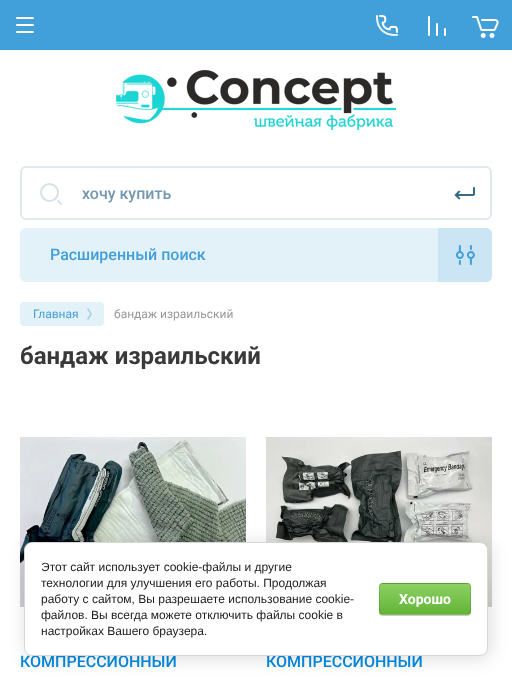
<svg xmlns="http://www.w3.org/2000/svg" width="512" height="680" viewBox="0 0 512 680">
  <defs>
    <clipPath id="clip1"><rect x="379" y="583" width="92" height="32" rx="4"/></clipPath>
    <linearGradient id="g1" gradientUnits="userSpaceOnUse" x1="425" y1="554" x2="425" y2="584"><stop offset="0" stop-color="rgb(140,209,100)"/><stop offset="1" stop-color="rgb(99,180,53)"/></linearGradient>
    <linearGradient id="g2" gradientUnits="userSpaceOnUse" x1="425" y1="584" x2="425" y2="614"><stop offset="0" stop-color="rgb(140,209,100)"/><stop offset="1" stop-color="rgb(99,180,53)"/></linearGradient>
    <linearGradient id="g3" gradientUnits="userSpaceOnUse" x1="425" y1="614" x2="425" y2="644"><stop offset="0" stop-color="rgb(140,209,100)"/><stop offset="1" stop-color="rgb(99,180,53)"/></linearGradient>
  </defs>
  <rect width="100%" height="100%" fill="rgb(255,255,255)"/>
  <rect x="0" y="0" width="512" height="50" fill="rgb(65,159,217)"/>
  <image x="16" y="17" width="18" height="16" href="pic1.png"/>
  <image x="376" y="15" width="22" height="21" href="pic2.png"/>
  <image x="428" y="16" width="18" height="20" href="pic3.png"/>
  <image x="472" y="16" width="27" height="22" href="pic4.png"/>
  <image x="116" y="70" width="280" height="60" href="pic5.png"/>
  <rect x="21" y="167" width="470" height="52" rx="5" fill="none" stroke="rgb(225,233,238)" stroke-width="2"/>
  <circle cx="49.5" cy="192.5" r="8.5" fill="none" stroke="rgb(215,225,232)" stroke-width="2"/>
  <path d="M58 201L61 204" fill="none" stroke="rgb(215,225,232)" stroke-width="2" stroke-linecap="round"/>
  <text x="82" y="199" font-family="Roboto" font-size="16" font-weight="500" fill="rgb(114,151,174)">хочу купить</text>
  <image x="454" y="187" width="21" height="13" href="pic6.png"/>
  <rect x="20" y="228" width="472" height="54" rx="6" fill="rgb(227,241,249)"/>
  <text x="50" y="260" font-family="Roboto" font-size="16" font-weight="500" fill="rgb(65,159,217)">Расширенный поиск</text>
  <path d="M438 228H486C489.5 228 492 230.5 492 234V276C492 279.5 489.5 282 486 282H438Z" fill="rgba(65,159,217,0.15)"/>
  <image x="456" y="245" width="19" height="20" href="pic7.png"/>
  <rect x="20" y="302" width="84" height="24" rx="4" fill="rgb(227,241,249)"/>
  <text x="33" y="318" font-family="Roboto" font-size="12" fill="rgb(65,159,217)">Главная</text>
  <image x="87" y="308" width="5" height="12" href="pic8.png"/>
  <text x="114" y="318" font-family="Roboto" font-size="12" fill="rgb(153,153,153)">бандаж израильский</text>
  <text x="20" y="364" font-family="Roboto" font-size="24" font-weight="bold" fill="rgb(57,57,57)">бандаж израильский</text>
  <image x="20" y="437" width="226" height="170" href="pic9.png"/>
  <text x="20" y="667" font-family="Roboto" font-size="16" font-weight="500" fill="rgb(0,139,225)">КОМПРЕССИОННЫЙ</text>
  <image x="266" y="437" width="226" height="170" href="pic10.png"/>
  <text x="266" y="667" font-family="Roboto" font-size="16" font-weight="500" fill="rgb(0,139,225)">КОМПРЕССИОННЫЙ</text>
  <rect x="26" y="544" width="464" height="114" rx="8" fill="rgba(0,0,0,0.14)" filter="blur(9px)"/>
  <rect x="24.5" y="542.5" width="463" height="113" rx="7.5" fill="rgb(255,255,255)" stroke="rgb(214,214,214)"/>
  <g font-family="Liberation Sans" font-size="12" fill="rgb(33,33,33)">
    <text>
      <tspan x="41" y="571">Этот сайт использует cookie-файлы и другие</tspan>
      <tspan x="41" y="587">технологии для улучшения его работы. Продолжая</tspan>
      <tspan x="41" y="603">работу с сайтом, Вы разрешаете использование cookie-</tspan>
      <tspan x="41" y="619">файлов. Вы всегда можете отключить файлы cookie в</tspan>
      <tspan x="41" y="635">настройках Вашего браузера.</tspan>
    </text>
  </g>
  <rect x="379" y="584" width="92" height="32" rx="4" fill="rgba(0,0,0,0.2)" filter="blur(0.5px)"/>
  <g clip-path="url(#clip1)">
    <rect x="379" y="583" width="92" height="1" fill="url(#g1)"/>
    <rect x="379" y="584" width="92" height="30" fill="url(#g2)"/>
    <rect x="379" y="614" width="92" height="1" fill="url(#g3)"/>
  </g>
  <rect x="379.5" y="583.5" width="91" height="31" rx="3.5" fill="none" stroke="rgba(0,0,0,0.1)"/>
  <text x="399" y="604" font-family="Roboto" font-size="14" font-weight="bold" fill="rgb(255,255,255)">Хорошо</text>
</svg>
